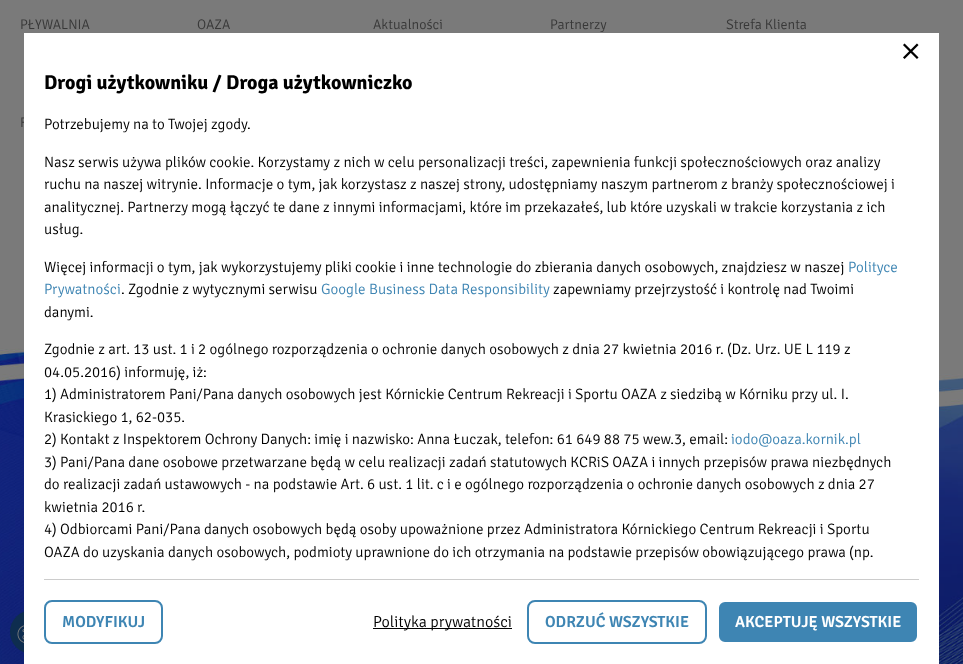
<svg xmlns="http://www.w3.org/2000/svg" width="963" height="664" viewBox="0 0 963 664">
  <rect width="100%" height="100%" fill="rgb(255,255,255)"/>
  <rect x="0" y="0" width="963" height="304" fill="rgb(122,122,122)"/>
  <g font-family="Signika" font-size="14" font-weight="300" fill="rgb(56,56,56)">
    <text x="20" y="29">PŁYWALNIA</text>
    <text x="20" y="127">F</text>
    <text x="197" y="29">OAZA</text>
    <text x="373" y="29">Aktualności</text>
    <text x="550" y="29">Partnerzy</text>
    <text x="726" y="29">Strefa Klienta</text>
  </g>
  <image x="0" y="304" width="963" height="360" href="pic1.png"/>
  <circle cx="32" cy="632" r="22" fill="rgb(14,45,79)"/>
  <image x="17" y="625" width="7" height="18" href="pic2.png"/>
  <rect x="24" y="33" width="915" height="631" fill="rgb(255,255,255)"/>
  <image x="903" y="43" width="16" height="16" href="pic3.png"/>
  <text x="44" y="89" font-family="Signika" font-size="20" font-weight="bold" fill="rgb(0,0,0)">Drogi użytkowniku / Droga użytkowniczko</text>
  <g font-family="Signika" font-size="15" font-weight="300" fill="rgb(0,0,0)">
    <text x="44" y="129">Potrzebujemy na to Twojej zgody.</text>
    <text>
      <tspan x="44" y="167">Nasz serwis używa plików cookie. Korzystamy z nich w celu personalizacji treści, zapewnienia funkcji społecznościowych oraz analizy</tspan>
      <tspan x="44" y="189">ruchu na naszej witrynie. Informacje o tym, jak korzystasz z naszej strony, udostępniamy naszym partnerom z branży społecznościowej i</tspan>
      <tspan x="44" y="212">analitycznej. Partnerzy mogą łączyć te dane z innymi informacjami, które im przekazałeś, lub które uzyskali w trakcie korzystania z ich</tspan>
      <tspan x="44" y="234">usług.</tspan>
    </text>
    <text x="44" y="272">Więcej informacji o tym, jak wykorzystujemy pliki cookie i inne technologie do zbierania danych osobowych, znajdziesz w naszej</text>
  </g>
  <g font-family="Signika" font-size="15" font-weight="300" fill="rgb(62,133,179)">
    <text x="848" y="272">Polityce</text>
    <text x="44" y="294">Prywatności</text>
  </g>
  <text x="121" y="294" font-family="Signika" font-size="15" font-weight="300" fill="rgb(0,0,0)">. Zgodnie z wytycznymi serwisu</text>
  <text x="321" y="294" font-family="Signika" font-size="15" font-weight="300" fill="rgb(62,133,179)">Google Business Data Responsibility</text>
  <g font-family="Signika" font-size="15" font-weight="300" fill="rgb(0,0,0)">
    <text x="553" y="294">zapewniamy przejrzystość i kontrolę nad Twoimi</text>
    <text x="44" y="317">danymi.</text>
    <text>
      <tspan x="44" y="354">Zgodnie z art. 13 ust. 1 i 2 ogólnego rozporządzenia o ochronie danych osobowych z dnia 27 kwietnia 2016 r. (Dz. Urz. UE L 119 z</tspan>
      <tspan x="44" y="377">04.05.2016) informuję, iż:</tspan>
      <tspan x="44" y="399">1) Administratorem Pani/Pana danych osobowych jest Kórnickie Centrum Rekreacji i Sportu OAZA z siedzibą w Kórniku przy ul. I.</tspan>
      <tspan x="44" y="422">Krasickiego 1, 62-035.</tspan>
      <tspan x="44" y="444">2) Kontakt z Inspektorem Ochrony Danych: imię i nazwisko: Anna Łuczak, telefon: 61 649 88 75 wew.3, email:</tspan>
    </text>
  </g>
  <text x="731" y="444" font-family="Signika" font-size="15" font-weight="300" fill="rgb(62,133,179)">iodo@oaza.kornik.pl</text>
  <g font-family="Signika" font-size="15" font-weight="300" fill="rgb(0,0,0)">
    <text>
      <tspan x="44" y="467">3) Pani/Pana dane osobowe przetwarzane będą w celu realizacji zadań statutowych KCRiS OAZA i innych przepisów prawa niezbędnych</tspan>
      <tspan x="44" y="489">do realizacji zadań ustawowych - na podstawie Art. 6 ust. 1 lit. c i e ogólnego rozporządzenia o ochronie danych osobowych z dnia 27</tspan>
      <tspan x="44" y="512">kwietnia 2016 r.</tspan>
      <tspan x="44" y="534">4) Odbiorcami Pani/Pana danych osobowych będą osoby upoważnione przez Administratora Kórnickiego Centrum Rekreacji i Sportu</tspan>
      <tspan x="44" y="557">OAZA do uzyskania danych osobowych, podmioty uprawnione do ich otrzymania na podstawie przepisów obowiązującego prawa (np.</tspan>
    </text>
  </g>
  <rect x="44" y="579" width="875" height="1" fill="rgb(204,204,204)"/>
  <rect x="45" y="601" width="117" height="42" rx="7" fill="none" stroke="rgb(62,133,179)" stroke-width="2"/>
  <text x="62" y="627" font-family="Signika" font-size="16" font-weight="600" fill="rgb(62,133,179)">MODYFIKUJ</text>
  <rect x="373" y="628" width="139" height="1" fill="rgb(0,0,0)"/>
  <text x="373" y="627" font-family="Signika" font-size="16" font-weight="300" fill="rgb(0,0,0)">Polityka prywatności</text>
  <rect x="528" y="601" width="178" height="42" rx="7" fill="none" stroke="rgb(62,133,179)" stroke-width="2"/>
  <text x="545" y="627" font-family="Signika" font-size="16" font-weight="600" fill="rgb(62,133,179)">ODRZUĆ WSZYSTKIE</text>
  <rect x="718" y="601" width="200" height="42" rx="7" fill="rgb(62,133,179)" stroke="rgb(255,255,255)" stroke-width="2"/>
  <text x="735" y="627" font-family="Signika" font-size="16" font-weight="600" fill="rgb(255,255,255)">AKCEPTUJĘ WSZYSTKIE</text>
</svg>
